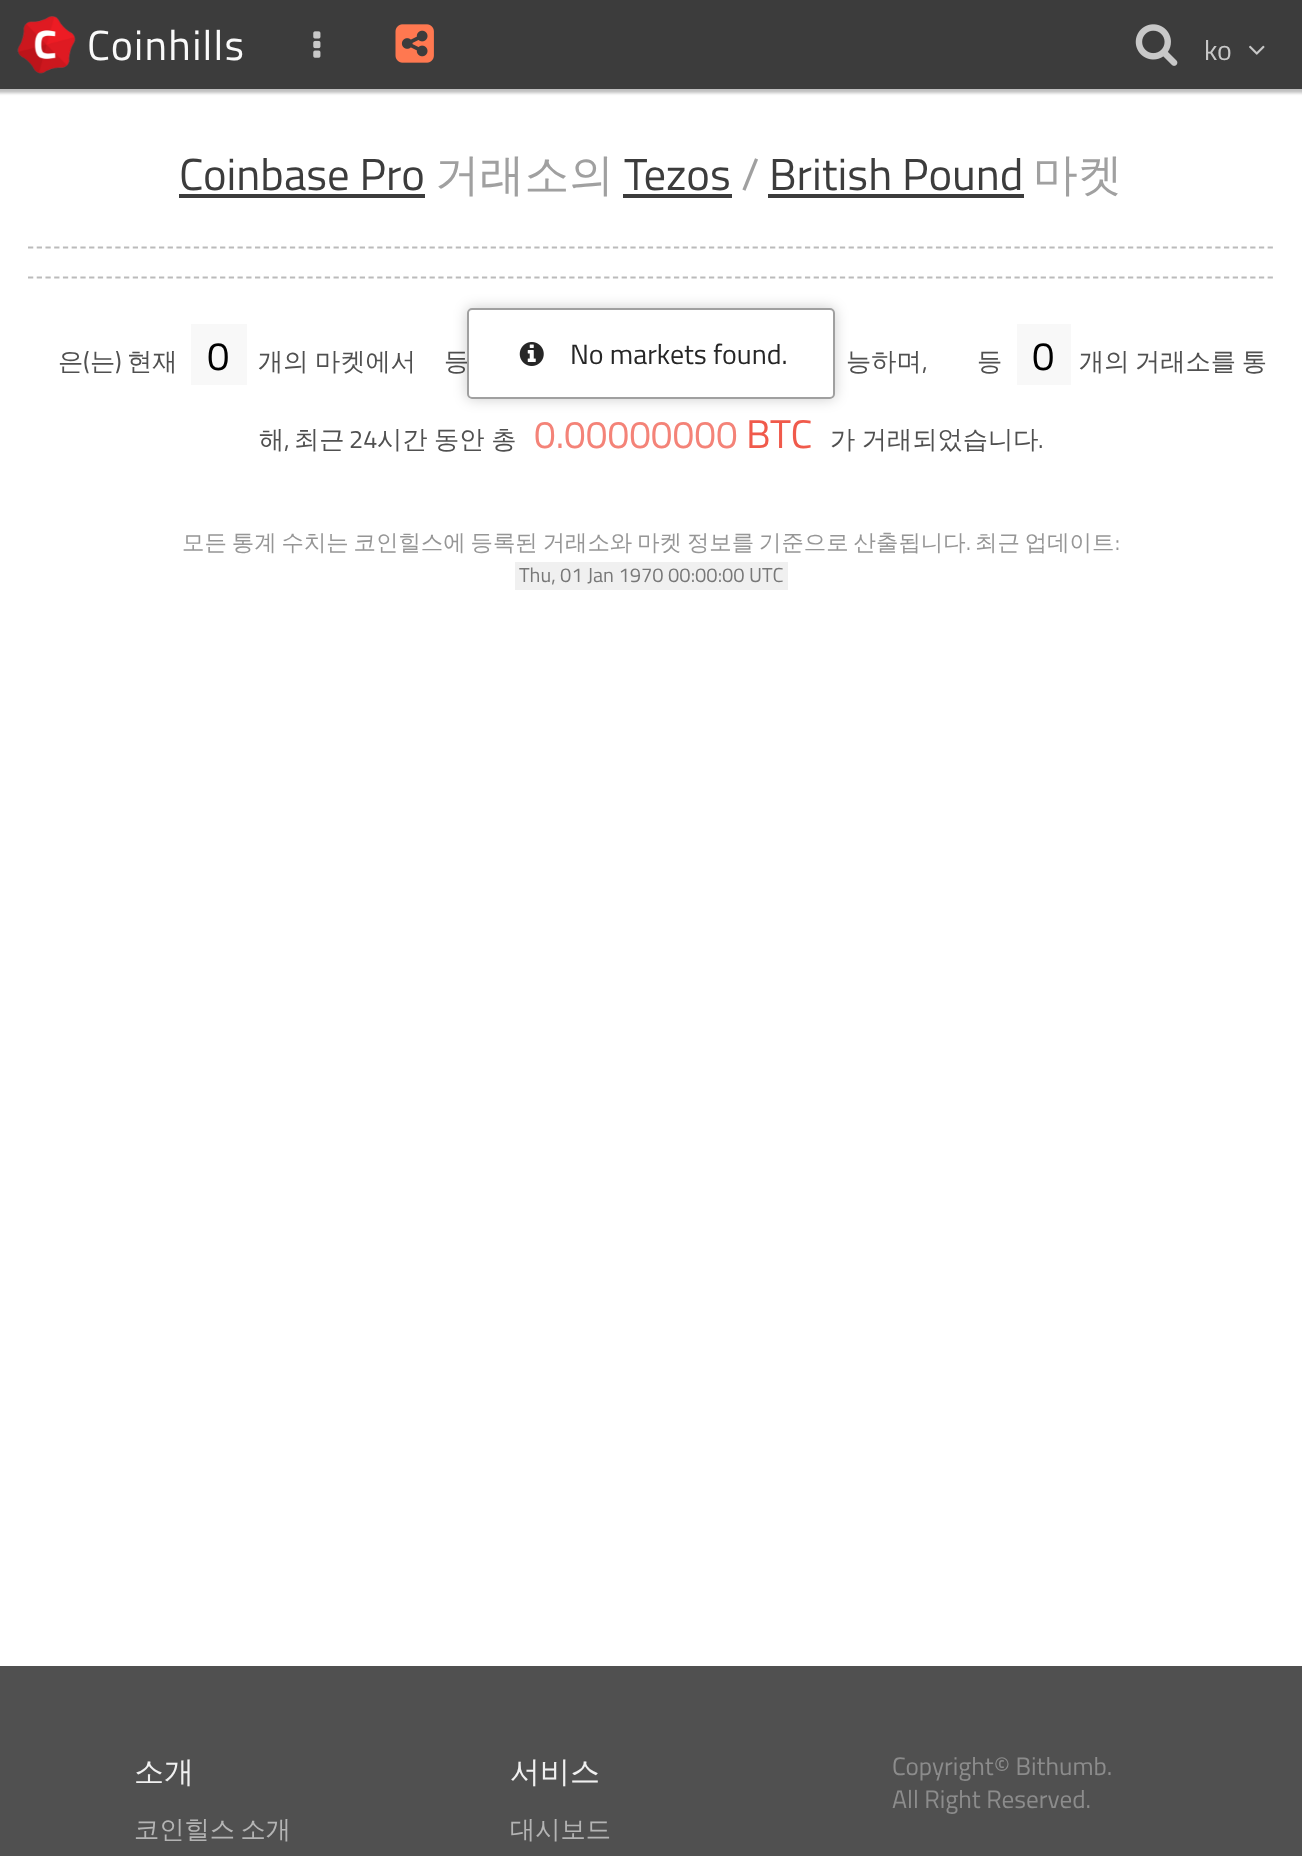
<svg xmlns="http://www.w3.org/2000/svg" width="1302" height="1856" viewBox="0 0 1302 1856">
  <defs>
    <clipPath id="clip1"><path d="M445 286H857V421H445ZM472 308H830C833 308 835 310 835 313V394C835 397 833 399 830 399H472C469 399 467 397 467 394V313C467 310 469 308 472 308Z" clip-rule="evenodd"/></clipPath>
  </defs>
  <rect width="100%" height="100%" fill="rgb(255,255,255)"/>
  <rect x="-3" y="-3" width="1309" height="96" fill="rgba(0,0,0,0.25)" filter="blur(1.5px)"/>
  <rect x="0" y="0" width="1302" height="89" fill="rgb(60,60,60)"/>
  <image x="17" y="16" width="59" height="58" href="pic1.png"/>
  <text x="87" y="60" font-family="Titillium Web" font-size="42" letter-spacing="1.25" fill="rgb(250,250,250)">Coinhills</text>
  <image x="313" y="31" width="8" height="27" href="pic2.png"/>
  <image x="395" y="24" width="39" height="39" href="pic3.png"/>
  <image x="1135" y="24" width="43" height="42" href="pic4.png"/>
  <text x="1204" y="60" font-family="Titillium Web" font-size="28" fill="rgb(200,200,200)">ko</text>
  <image x="1249" y="45" width="16" height="10" href="pic5.png"/>
  <text x="179" y="190" font-family="Titillium Web" font-size="44.75" fill="rgb(60,60,60)">Coinbase Pro</text>
  <rect x="179" y="194" width="246" height="4" fill="rgb(60,60,60)"/>
  <text x="435" y="190" font-family="WenQuanYi Zen Hei" font-size="44.75" font-weight="500" fill="rgb(160,160,160)">거래소의</text>
  <text x="624" y="190" font-family="Titillium Web" font-size="44.75" fill="rgb(60,60,60)">Tezos</text>
  <rect x="623" y="194" width="109" height="4" fill="rgb(60,60,60)"/>
  <text x="741" y="190" font-family="Titillium Web" font-size="44.75" fill="rgb(160,160,160)">/</text>
  <text x="769" y="190" font-family="Titillium Web" font-size="44.75" fill="rgb(60,60,60)">British Pound</text>
  <rect x="768" y="194" width="256" height="4" fill="rgb(60,60,60)"/>
  <text x="1033" y="190" font-family="WenQuanYi Zen Hei" font-size="44.75" font-weight="500" fill="rgb(160,160,160)">마켓</text>
  <path d="M28 247.5H1274" fill="none" stroke="rgb(187,187,187)" stroke-width="1.8" stroke-dasharray="5.25 3.48"/>
  <path d="M28 277.5H1274" fill="none" stroke="rgb(187,187,187)" stroke-width="1.8" stroke-dasharray="5.25 3.48"/>
  <text x="58" y="370" font-family="WenQuanYi Zen Hei" font-size="25.25" font-weight="500" fill="rgb(80,80,80)">은</text>
  <text x="83" y="370" font-family="Titillium Web" font-size="25.25" fill="rgb(80,80,80)">(</text>
  <text x="90" y="370" font-family="WenQuanYi Zen Hei" font-size="25.25" font-weight="500" fill="rgb(80,80,80)">는</text>
  <text x="115" y="370" font-family="Titillium Web" font-size="25.25" fill="rgb(80,80,80)">)</text>
  <text x="127" y="370" font-family="WenQuanYi Zen Hei" font-size="25.25" font-weight="500" fill="rgb(80,80,80)">현재</text>
  <rect x="191" y="324" width="56" height="61" fill="rgb(248,248,248)"/>
  <text x="207" y="370" font-family="Titillium Web" font-size="40" fill="rgb(0,0,0)">0</text>
  <g font-family="WenQuanYi Zen Hei" font-size="25.25" font-weight="500" fill="rgb(80,80,80)">
    <text x="258" y="370" word-spacing="-1">개의 마켓에서</text>
    <text x="444" y="370">등</text>
  </g>
  <rect x="483" y="324" width="54" height="61" fill="rgb(248,248,248)"/>
  <text x="846" y="370" word-spacing="-2" font-family="WenQuanYi Zen Hei" font-size="25.25" font-weight="500" fill="rgb(80,80,80)">능하며</text>
  <text x="922" y="370" font-family="Titillium Web" font-size="25.25" fill="rgb(80,80,80)">,</text>
  <text x="977" y="370" font-family="WenQuanYi Zen Hei" font-size="25.25" font-weight="500" fill="rgb(80,80,80)">등</text>
  <rect x="1017" y="324" width="54" height="61" fill="rgb(248,248,248)"/>
  <text x="1032" y="370" font-family="Titillium Web" font-size="40" fill="rgb(0,0,0)">0</text>
  <g font-family="WenQuanYi Zen Hei" font-size="25.25" font-weight="500" fill="rgb(80,80,80)">
    <text x="1079" y="370" word-spacing="-2">개의 거래소를 통</text>
    <text x="259" y="448">해</text>
  </g>
  <text x="284" y="448" font-family="Titillium Web" font-size="25.25" fill="rgb(80,80,80)">,</text>
  <text x="294" y="448" font-family="WenQuanYi Zen Hei" font-size="25.25" font-weight="500" fill="rgb(80,80,80)">최근</text>
  <text x="349" y="448" font-family="Titillium Web" font-size="25.25" fill="rgb(80,80,80)">24</text>
  <text x="377" y="448" word-spacing="-1" font-family="WenQuanYi Zen Hei" font-size="25.25" font-weight="500" fill="rgb(80,80,80)">시간 동안 총</text>
  <text x="534" y="448" font-family="Titillium Web" font-size="38.75" fill="rgb(244,131,120)">0.00000000</text>
  <text x="746" y="448" font-family="Titillium Web" font-size="40" fill="rgb(240,90,75)">BTC</text>
  <text x="830" y="448" word-spacing="-1" font-family="WenQuanYi Zen Hei" font-size="25.25" font-weight="500" fill="rgb(80,80,80)">가 거래되었습니다</text>
  <text x="1038" y="448" font-family="Titillium Web" font-size="25.25" fill="rgb(80,80,80)">.</text>
  <text x="182" y="550" word-spacing="-1.75" font-family="WenQuanYi Zen Hei" font-size="22.4" font-weight="500" fill="rgb(150,150,150)">모든 통계 수치는 코인힐스에 등록된 거래소와 마켓 정보를 기준으로 산출됩니다</text>
  <text x="966" y="550" font-family="Titillium Web" font-size="22.4" fill="rgb(150,150,150)">.</text>
  <text x="975" y="550" word-spacing="-1.75" font-family="WenQuanYi Zen Hei" font-size="22.4" font-weight="500" fill="rgb(150,150,150)">최근 업데이트</text>
  <text x="1115" y="550" font-family="Titillium Web" font-size="22.4" fill="rgb(150,150,150)">:</text>
  <rect x="515" y="562" width="273" height="28" fill="rgb(240,240,240)"/>
  <text x="519" y="582" font-family="Titillium Web" font-size="20.2" fill="rgb(120,120,120)">Thu, 01 Jan 1970 00:00:00 UTC</text>
  <g clip-path="url(#clip1)">
    <rect x="467" y="308" width="368" height="91" rx="5" fill="rgba(0,0,0,0.2)" filter="blur(7px)"/>
  </g>
  <rect x="468" y="309" width="366" height="89" rx="4" fill="rgba(255,255,255,0.95)" stroke="rgb(160,160,160)" stroke-width="2"/>
  <image x="519" y="342" width="25" height="24" href="pic6.png"/>
  <text x="570" y="364" font-family="Titillium Web" font-size="28" fill="rgb(38,38,38)">No markets found.</text>
  <rect x="0" y="1666" width="1302" height="190" fill="rgb(80,80,80)"/>
  <text x="134" y="1782" font-family="WenQuanYi Zen Hei" font-size="30" font-weight="500" fill="rgb(240,240,240)">소개</text>
  <text x="134" y="1838" word-spacing="-2" font-family="WenQuanYi Zen Hei" font-size="25.25" font-weight="500" fill="rgb(180,180,180)">코인힐스 소개</text>
  <text x="510" y="1782" font-family="WenQuanYi Zen Hei" font-size="30" font-weight="500" fill="rgb(240,240,240)">서비스</text>
  <text x="510" y="1838" font-family="WenQuanYi Zen Hei" font-size="25.25" font-weight="500" fill="rgb(180,180,180)">대시보드</text>
  <g font-family="Titillium Web" font-size="25.25" fill="rgb(140,140,140)">
    <text>
      <tspan x="892" y="1775">Copyright© Bithumb.</tspan>
      <tspan x="892" y="1808">All Right Reserved.</tspan>
    </text>
  </g>
</svg>
